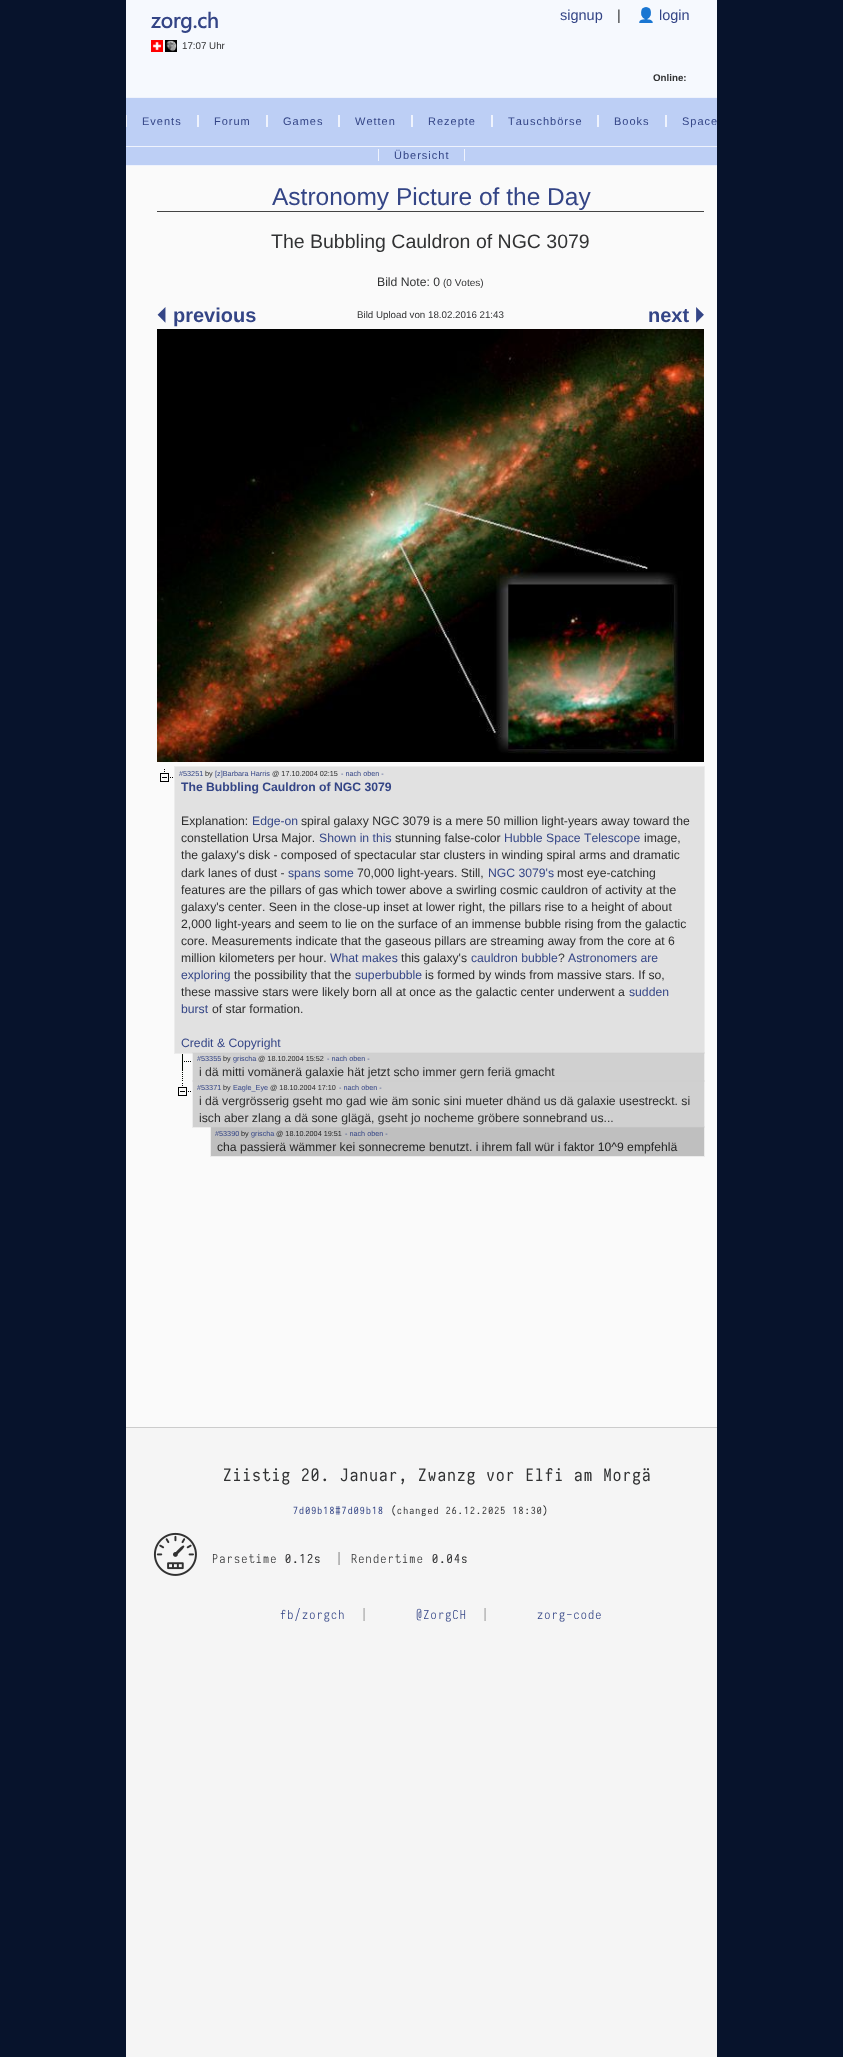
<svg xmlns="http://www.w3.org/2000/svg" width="843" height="2057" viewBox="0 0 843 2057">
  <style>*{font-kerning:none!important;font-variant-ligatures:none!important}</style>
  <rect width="100%" height="100%" fill="rgb(7,19,44)"/>
  <rect x="126" y="0" width="591" height="97" fill="rgb(246,249,254)"/>
  <text x="151" y="28" font-family="Segoe UI" font-size="21" font-weight="bold" fill="rgb(52,69,134)">zorg.ch</text>
  <text x="560" y="20" font-family="Liberation Sans" font-size="14.5" fill="rgb(52,69,134)">signup</text>
  <text x="617" y="20" font-family="Liberation Sans" font-size="14.5" fill="rgb(49,50,51)">|</text>
  <text x="637" y="20" font-family="Noto Color Emoji" font-size="14.5" fill="rgb(52,69,134)">👤</text>
  <text x="659" y="20" font-family="Liberation Sans" font-size="14.5" fill="rgb(52,69,134)">login</text>
  <image x="151" y="40" width="12" height="12" href="pic1.png"/>
  <image x="165" y="40" width="12" height="12" href="pic2.png"/>
  <text x="182" y="49" font-family="Liberation Sans" font-size="9.75" fill="rgb(49,50,51)">17:07 Uhr</text>
  <text x="653" y="81" font-family="Liberation Sans" font-size="9.75" font-weight="bold" fill="rgb(49,50,51)">Online:</text>
  <rect x="126" y="98" width="591" height="48" fill="rgb(189,207,245)"/>
  <rect x="126" y="97" width="591" height="1" fill="rgb(239,243,253)"/>
  <text x="142" y="125" font-family="Liberation Sans" font-size="11" letter-spacing="1" fill="rgb(52,69,134)">Events</text>
  <rect x="197" y="115" width="2" height="12" fill="rgb(239,243,253)"/>
  <rect x="126" y="115" width="1" height="12" fill="rgb(239,243,253)"/>
  <text x="214" y="125" font-family="Liberation Sans" font-size="11" letter-spacing="1" fill="rgb(52,69,134)">Forum</text>
  <rect x="266" y="115" width="2" height="12" fill="rgb(239,243,253)"/>
  <text x="283" y="125" font-family="Liberation Sans" font-size="11" letter-spacing="1" fill="rgb(52,69,134)">Games</text>
  <rect x="338" y="115" width="2" height="12" fill="rgb(239,243,253)"/>
  <text x="355" y="125" font-family="Liberation Sans" font-size="11" letter-spacing="1" fill="rgb(52,69,134)">Wetten</text>
  <rect x="411" y="115" width="2" height="12" fill="rgb(239,243,253)"/>
  <text x="428" y="125" font-family="Liberation Sans" font-size="11" letter-spacing="1" fill="rgb(52,69,134)">Rezepte</text>
  <rect x="491" y="115" width="2" height="12" fill="rgb(239,243,253)"/>
  <text x="508" y="125" font-family="Liberation Sans" font-size="11" letter-spacing="1" fill="rgb(52,69,134)">Tauschbörse</text>
  <rect x="597" y="115" width="2" height="12" fill="rgb(239,243,253)"/>
  <text x="614" y="125" font-family="Liberation Sans" font-size="11" letter-spacing="1" fill="rgb(52,69,134)">Books</text>
  <rect x="665" y="115" width="2" height="12" fill="rgb(239,243,253)"/>
  <text x="682" y="125" font-family="Liberation Sans" font-size="11" letter-spacing="1" fill="rgb(52,69,134)">Space</text>
  <rect x="126" y="147" width="591" height="18" fill="rgb(189,207,245)"/>
  <rect x="126" y="146" width="591" height="1" fill="rgb(239,243,253)"/>
  <rect x="126" y="165" width="591" height="1" fill="rgb(239,243,253)"/>
  <text x="394" y="159" font-family="Liberation Sans" font-size="11" letter-spacing="1" fill="rgb(52,69,134)">Übersicht</text>
  <rect x="464" y="149" width="1" height="12" fill="rgb(239,243,253)"/>
  <rect x="378" y="149" width="1" height="12" fill="rgb(239,243,253)"/>
  <rect x="126" y="166" width="591" height="1261" fill="rgb(250,250,250)"/>
  <rect x="157" y="211" width="547" height="1" fill="rgb(68,68,68)"/>
  <text x="272" y="205" font-family="Liberation Sans" font-size="24.5" fill="rgb(52,69,134)">Astronomy Picture of the Day</text>
  <text x="271" y="248" font-family="Liberation Sans" font-size="19.5" fill="rgb(49,50,51)">The Bubbling Cauldron of NGC 3079</text>
  <text x="377" y="286" font-family="Liberation Sans" font-size="12.2" fill="rgb(49,50,51)">Bild Note: 0</text>
  <text x="443" y="286" font-family="Liberation Sans" font-size="10" fill="rgb(49,50,51)">(0 Votes)</text>
  <text x="157" y="322" font-family="FreeSans" font-size="20" font-weight="bold" fill="rgb(52,69,134)">⏴</text>
  <text x="173" y="322" font-family="Liberation Sans" font-size="20" font-weight="bold" fill="rgb(52,69,134)">previous</text>
  <text x="357" y="318" font-family="Liberation Sans" font-size="9.75" fill="rgb(49,50,51)">Bild Upload von 18.02.2016 21:43</text>
  <text x="648" y="322" font-family="Liberation Sans" font-size="20" font-weight="bold" fill="rgb(52,69,134)">next</text>
  <text x="694" y="322" font-family="FreeSans" font-size="20" font-weight="bold" fill="rgb(52,69,134)">⏵</text>
  <image x="157" y="329" width="547" height="433" href="pic3.png"/>
  <image x="160" y="769" width="13" height="13" href="pic4.png"/>
  <rect x="175" y="767" width="529" height="286" fill="rgb(225,225,225)"/>
  <rect x="193" y="1053" width="511" height="74" fill="rgb(208,208,208)"/>
  <rect x="174.5" y="766.5" width="530" height="287" fill="none" stroke="rgba(204,204,204,0.3)"/>
  <text x="179" y="776" font-family="Liberation Sans" font-size="7.25" fill="rgb(52,69,134)">#53251</text>
  <text x="205" y="776" font-family="Liberation Sans" font-size="7.25" fill="rgb(45,45,45)">by</text>
  <text x="215" y="776" font-family="Liberation Sans" font-size="7.25" fill="rgb(52,69,134)">[z]Barbara Harris</text>
  <text x="272" y="776" font-family="Liberation Sans" font-size="7.25" fill="rgb(45,45,45)">@ 17.10.2004 02:15</text>
  <text x="341" y="776" font-family="Liberation Sans" font-size="7.25" fill="rgb(52,69,134)">- nach oben -</text>
  <text x="181" y="791" font-family="Liberation Sans" font-size="12.2" font-weight="bold" fill="rgb(52,69,134)">The Bubbling Cauldron of NGC 3079</text>
  <text x="181" y="825" font-family="Liberation Sans" font-size="12.2" fill="rgb(45,45,45)">Explanation:</text>
  <text x="252" y="825" font-family="Liberation Sans" font-size="12.2" fill="rgb(52,69,134)">Edge-on</text>
  <g font-family="Liberation Sans" font-size="12.2" fill="rgb(45,45,45)">
    <text x="301" y="825">spiral galaxy NGC 3079 is a mere 50 million light-years away toward the</text>
    <text x="181" y="842">constellation Ursa Major.</text>
  </g>
  <text x="319" y="842" font-family="Liberation Sans" font-size="12.2" fill="rgb(52,69,134)">Shown in this</text>
  <text x="395" y="842" font-family="Liberation Sans" font-size="12.2" fill="rgb(45,45,45)">stunning false-color</text>
  <text x="504" y="842" font-family="Liberation Sans" font-size="12.2" fill="rgb(52,69,134)">Hubble Space Telescope</text>
  <g font-family="Liberation Sans" font-size="12.2" fill="rgb(45,45,45)">
    <text x="644" y="842">image,</text>
    <text>
      <tspan x="181" y="859">the galaxy's disk - composed of spectacular star clusters in winding spiral arms and dramatic</tspan>
      <tspan x="181" y="877">dark lanes of dust -</tspan>
    </text>
  </g>
  <text x="288" y="877" font-family="Liberation Sans" font-size="12.2" fill="rgb(52,69,134)">spans some</text>
  <text x="357" y="877" font-family="Liberation Sans" font-size="12.2" fill="rgb(45,45,45)">70,000 light-years. Still,</text>
  <text x="488" y="877" font-family="Liberation Sans" font-size="12.2" fill="rgb(52,69,134)">NGC 3079's</text>
  <g font-family="Liberation Sans" font-size="12.2" fill="rgb(45,45,45)">
    <text x="557" y="877">most eye-catching</text>
    <text>
      <tspan x="181" y="894">features are the pillars of gas which tower above a swirling cosmic cauldron of activity at the</tspan>
      <tspan x="181" y="911">galaxy's center. Seen in the close-up inset at lower right, the pillars rise to a height of about</tspan>
      <tspan x="181" y="928">2,000 light-years and seem to lie on the surface of an immense bubble rising from the galactic</tspan>
      <tspan x="181" y="945">core. Measurements indicate that the gaseous pillars are streaming away from the core at 6</tspan>
      <tspan x="181" y="962">million kilometers per hour.</tspan>
    </text>
  </g>
  <text x="330" y="962" font-family="Liberation Sans" font-size="12.2" fill="rgb(52,69,134)">What makes</text>
  <text x="401" y="962" font-family="Liberation Sans" font-size="12.2" fill="rgb(45,45,45)">this galaxy's</text>
  <text x="471" y="962" font-family="Liberation Sans" font-size="12.2" fill="rgb(52,69,134)">cauldron bubble</text>
  <text x="558" y="962" font-family="Liberation Sans" font-size="12.2" fill="rgb(45,45,45)">?</text>
  <g font-family="Liberation Sans" font-size="12.2" fill="rgb(52,69,134)">
    <text x="568" y="962">Astronomers are</text>
    <text x="181" y="979">exploring</text>
  </g>
  <text x="234" y="979" font-family="Liberation Sans" font-size="12.2" fill="rgb(45,45,45)">the possibility that the</text>
  <text x="355" y="979" font-family="Liberation Sans" font-size="12.2" fill="rgb(52,69,134)">superbubble</text>
  <g font-family="Liberation Sans" font-size="12.2" fill="rgb(45,45,45)">
    <text x="425" y="979">is formed by winds from massive stars. If so,</text>
    <text x="181" y="996">these massive stars were likely born all at once as the galactic center underwent a</text>
  </g>
  <g font-family="Liberation Sans" font-size="12.2" fill="rgb(52,69,134)">
    <text x="629" y="996">sudden</text>
    <text x="181" y="1013">burst</text>
  </g>
  <text x="212" y="1013" font-family="Liberation Sans" font-size="12.2" fill="rgb(45,45,45)">of star formation.</text>
  <text x="181" y="1047" font-family="Liberation Sans" font-size="12.2" fill="rgb(52,69,134)">Credit &amp; Copyright</text>
  <image x="182" y="1054" width="1" height="27" href="pic5.png"/>
  <image x="182" y="1055" width="9" height="15" href="pic6.png"/>
  <rect x="192.5" y="1052.5" width="512" height="29" fill="none" stroke="rgba(204,204,204,0.3)"/>
  <text x="197" y="1061" font-family="Liberation Sans" font-size="7.25" fill="rgb(52,69,134)">#53355</text>
  <text x="223" y="1061" font-family="Liberation Sans" font-size="7.25" fill="rgb(45,45,45)">by</text>
  <text x="233" y="1061" font-family="Liberation Sans" font-size="7.25" fill="rgb(52,69,134)">grischa</text>
  <text x="258" y="1061" font-family="Liberation Sans" font-size="7.25" fill="rgb(45,45,45)">@ 18.10.2004 15:52</text>
  <text x="327" y="1061" font-family="Liberation Sans" font-size="7.25" fill="rgb(52,69,134)">- nach oben -</text>
  <text x="199" y="1076" font-family="Liberation Sans" font-size="12.2" fill="rgb(45,45,45)">i dä mitti vomänerä galaxie hät jetzt scho immer gern feriä gmacht</text>
  <image x="178" y="1083" width="13" height="13" href="pic4.png"/>
  <rect x="211" y="1127" width="493" height="29" fill="rgb(191,191,191)"/>
  <rect x="192.5" y="1080.5" width="512" height="47" fill="none" stroke="rgba(204,204,204,0.3)"/>
  <text x="197" y="1090" font-family="Liberation Sans" font-size="7.25" fill="rgb(52,69,134)">#53371</text>
  <text x="223" y="1090" font-family="Liberation Sans" font-size="7.25" fill="rgb(45,45,45)">by</text>
  <text x="233" y="1090" font-family="Liberation Sans" font-size="7.25" fill="rgb(52,69,134)">Eagle_Eye</text>
  <text x="270" y="1090" font-family="Liberation Sans" font-size="7.25" fill="rgb(45,45,45)">@ 18.10.2004 17:10</text>
  <text x="339" y="1090" font-family="Liberation Sans" font-size="7.25" fill="rgb(52,69,134)">- nach oben -</text>
  <g font-family="Liberation Sans" font-size="12.2" fill="rgb(45,45,45)">
    <text>
      <tspan x="199" y="1105">i dä vergrösserig gseht mo gad wie äm sonic sini mueter dhänd us dä galaxie usestreckt. si</tspan>
      <tspan x="199" y="1122">isch aber zlang a dä sone glägä, gseht jo nocheme gröbere sonnebrand us...</tspan>
    </text>
  </g>
  <rect x="210.5" y="1126.5" width="494" height="30" fill="none" stroke="rgba(204,204,204,0.3)"/>
  <text x="215" y="1136" font-family="Liberation Sans" font-size="7.25" fill="rgb(52,69,134)">#53390</text>
  <text x="241" y="1136" font-family="Liberation Sans" font-size="7.25" fill="rgb(38,38,38)">by</text>
  <text x="251" y="1136" font-family="Liberation Sans" font-size="7.25" fill="rgb(52,69,134)">grischa</text>
  <text x="276" y="1136" font-family="Liberation Sans" font-size="7.25" fill="rgb(38,38,38)">@ 18.10.2004 19:51</text>
  <text x="345" y="1136" font-family="Liberation Sans" font-size="7.25" fill="rgb(52,69,134)">- nach oben -</text>
  <text x="217" y="1151" font-family="Liberation Sans" font-size="12.2" fill="rgb(38,38,38)">cha passierä wämmer kei sonnecreme benutzt. i ihrem fall wür i faktor 10^9 empfehlä</text>
  <rect x="126" y="1428" width="591" height="629" fill="rgb(245,245,245)"/>
  <rect x="126" y="1427" width="591" height="1" fill="rgb(204,204,204)"/>
  <text x="223" y="1481" font-family="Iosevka" font-size="17.1" letter-spacing="1.2" fill="rgb(49,50,51)">Ziistig 20. Januar, Zwanzg vor Elfi am Morgä</text>
  <text x="293" y="1514" font-family="Iosevka" font-size="9.75" letter-spacing="1.2" fill="rgb(52,69,134)">7d09b18#7d09b18</text>
  <text x="391" y="1514" font-family="Iosevka" font-size="9.75" letter-spacing="1.2" fill="rgb(49,50,51)">(changed 26.12.2025 18:30)</text>
  <image x="153" y="1532" width="44" height="44" href="pic7.png"/>
  <text x="212" y="1563" font-family="Iosevka" font-size="12.2" font-weight="300" letter-spacing="1.2" fill="rgb(49,50,51)">Parsetime</text>
  <text x="285" y="1563" font-family="Iosevka" font-size="12.2" letter-spacing="1.2" fill="rgb(49,50,51)">0.12s</text>
  <text x="336" y="1563" font-family="Iosevka" font-size="12.2" letter-spacing="1.2" fill="rgb(128,128,128)">|</text>
  <text x="351" y="1563" font-family="Iosevka" font-size="12.2" font-weight="300" letter-spacing="1.2" fill="rgb(49,50,51)">Rendertime</text>
  <text x="432" y="1563" font-family="Iosevka" font-size="12.2" letter-spacing="1.2" fill="rgb(49,50,51)">0.04s</text>
  <text x="280" y="1619" font-family="Iosevka" font-size="12.2" font-weight="300" letter-spacing="1.2" fill="rgb(52,69,134)">fb/zorgch</text>
  <text x="361" y="1619" font-family="Iosevka" font-size="12.2" font-weight="300" letter-spacing="1.2" fill="rgb(128,128,128)">|</text>
  <text x="416" y="1619" font-family="Iosevka" font-size="12.2" font-weight="300" letter-spacing="1.2" fill="rgb(52,69,134)">@ZorgCH</text>
  <text x="482" y="1619" font-family="Iosevka" font-size="12.2" font-weight="300" letter-spacing="1.2" fill="rgb(128,128,128)">|</text>
  <text x="537" y="1619" font-family="Iosevka" font-size="12.2" font-weight="300" letter-spacing="1.2" fill="rgb(52,69,134)">zorg-code</text>
</svg>
